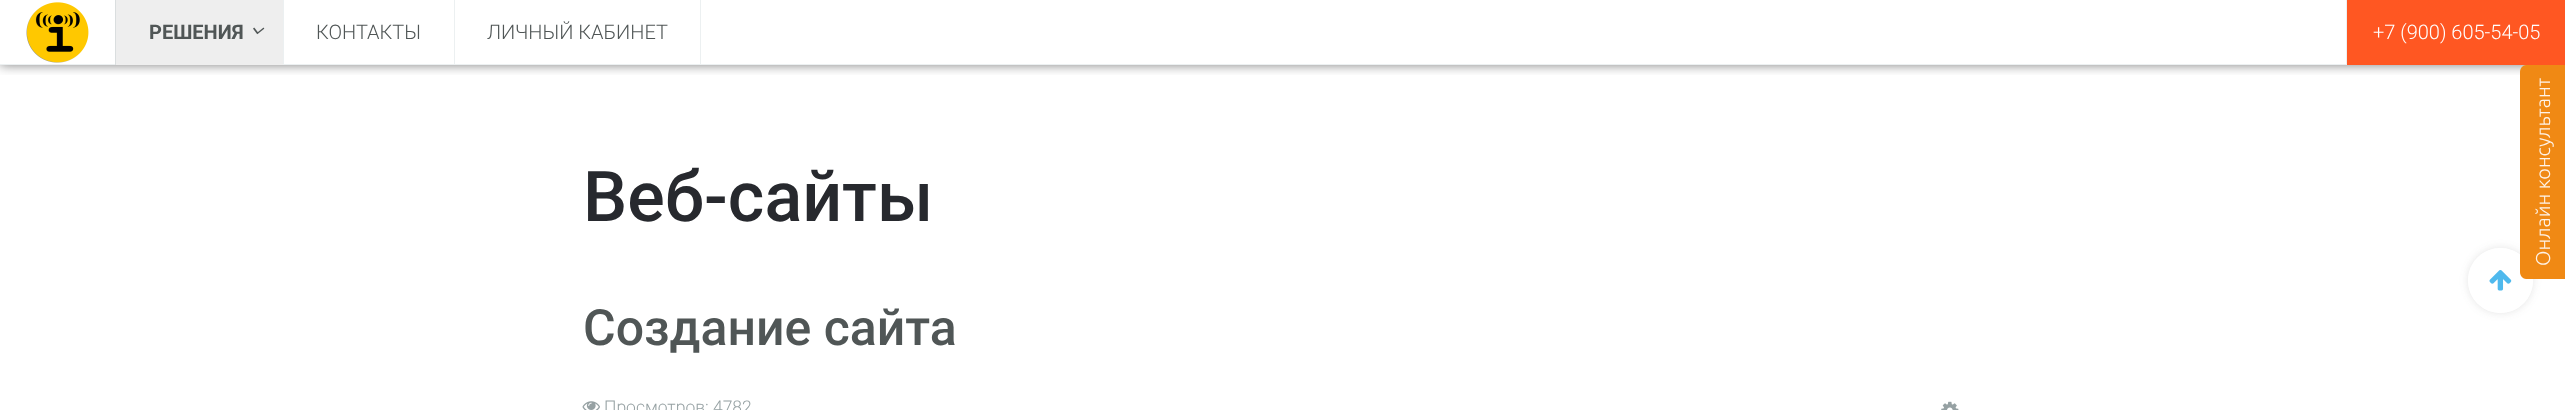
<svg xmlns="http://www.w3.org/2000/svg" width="2565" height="410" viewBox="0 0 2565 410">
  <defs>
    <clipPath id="clip1"><rect x="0" y="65" width="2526" height="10"/></clipPath>
    <clipPath id="clip2"><path d="M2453 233H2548V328H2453ZM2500.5 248C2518.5 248 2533 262.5 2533 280.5C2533 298.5 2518.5 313 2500.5 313C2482.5 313 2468 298.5 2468 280.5C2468 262.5 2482.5 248 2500.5 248Z" clip-rule="evenodd"/></clipPath>
  </defs>
  <rect width="100%" height="100%" fill="rgb(255,255,255)"/>
  <g clip-path="url(#clip1)">
    <rect x="0" y="0" width="2565" height="65" fill="rgba(0,0,0,0.5)" filter="blur(6px)"/>
  </g>
  <rect x="0" y="64" width="2346" height="1" fill="rgb(236,240,241)"/>
  <rect x="115" y="0" width="1" height="65" fill="rgb(218,222,223)"/>
  <image x="26" y="2" width="63" height="61" href="pic1.png"/>
  <rect x="283" y="0" width="1" height="65" fill="rgb(236,240,241)"/>
  <rect x="116" y="0" width="167" height="65" fill="rgb(238,238,238)"/>
  <text x="149" y="39" font-family="Roboto" font-size="20" font-weight="bold" fill="rgb(80,86,86)">РЕШЕНИЯ</text>
  <image x="253" y="27" width="12" height="8" href="pic2.png"/>
  <rect x="454" y="0" width="1" height="65" fill="rgb(236,240,241)"/>
  <text x="316" y="39" font-family="Roboto" font-size="20" font-weight="300" fill="rgb(80,86,86)">КОНТАКТЫ</text>
  <rect x="700" y="0" width="1" height="65" fill="rgb(236,240,241)"/>
  <text x="487" y="39" font-family="Roboto" font-size="20" font-weight="300" fill="rgb(80,86,86)">ЛИЧНЫЙ КАБИНЕТ</text>
  <rect x="2347" y="0" width="218" height="65" fill="rgb(255,87,34)"/>
  <rect x="2346" y="0" width="1" height="65" fill="rgb(236,240,241)"/>
  <text x="2373" y="39" font-family="Roboto" font-size="20" font-weight="300" fill="rgb(255,255,255)">+7 (900) 605-54-05</text>
  <text x="583" y="221" font-family="Roboto" font-size="70" font-weight="500" fill="rgb(39,41,46)">Веб-сайты</text>
  <text x="583" y="345" font-family="Roboto" font-size="50" font-weight="500" fill="rgb(80,86,86)">Создание сайта</text>
  <image x="582" y="401" width="18" height="9" href="pic3.png"/>
  <text x="604" y="413" font-family="Roboto" font-size="17.5" font-weight="300" fill="rgb(150,161,163)">Просмотров: 4782</text>
  <image x="1941" y="401" width="18" height="9" href="pic4.png"/>
  <g clip-path="url(#clip2)">
    <rect x="2468" y="248" width="65" height="65" rx="32.5" fill="rgba(77,77,77,0.15)" filter="blur(4.5px)"/>
  </g>
  <circle cx="2500.5" cy="280.5" r="32.5" fill="rgba(255,255,255,0.9)"/>
  <image x="2489" y="270" width="23" height="21" href="pic5.png"/>
  <path d="M2520 272V72C2520 68 2523 65 2526 65H2565V279H2526C2523 279 2520 276 2520 272Z" fill="rgb(240,137,20)"/>
  <text x="2550" y="266" transform="rotate(-90 2550 266)" font-family="Ubuntu" font-size="20" font-weight="300" fill="rgb(254,243,232)">Онлайн консультант</text>
</svg>
